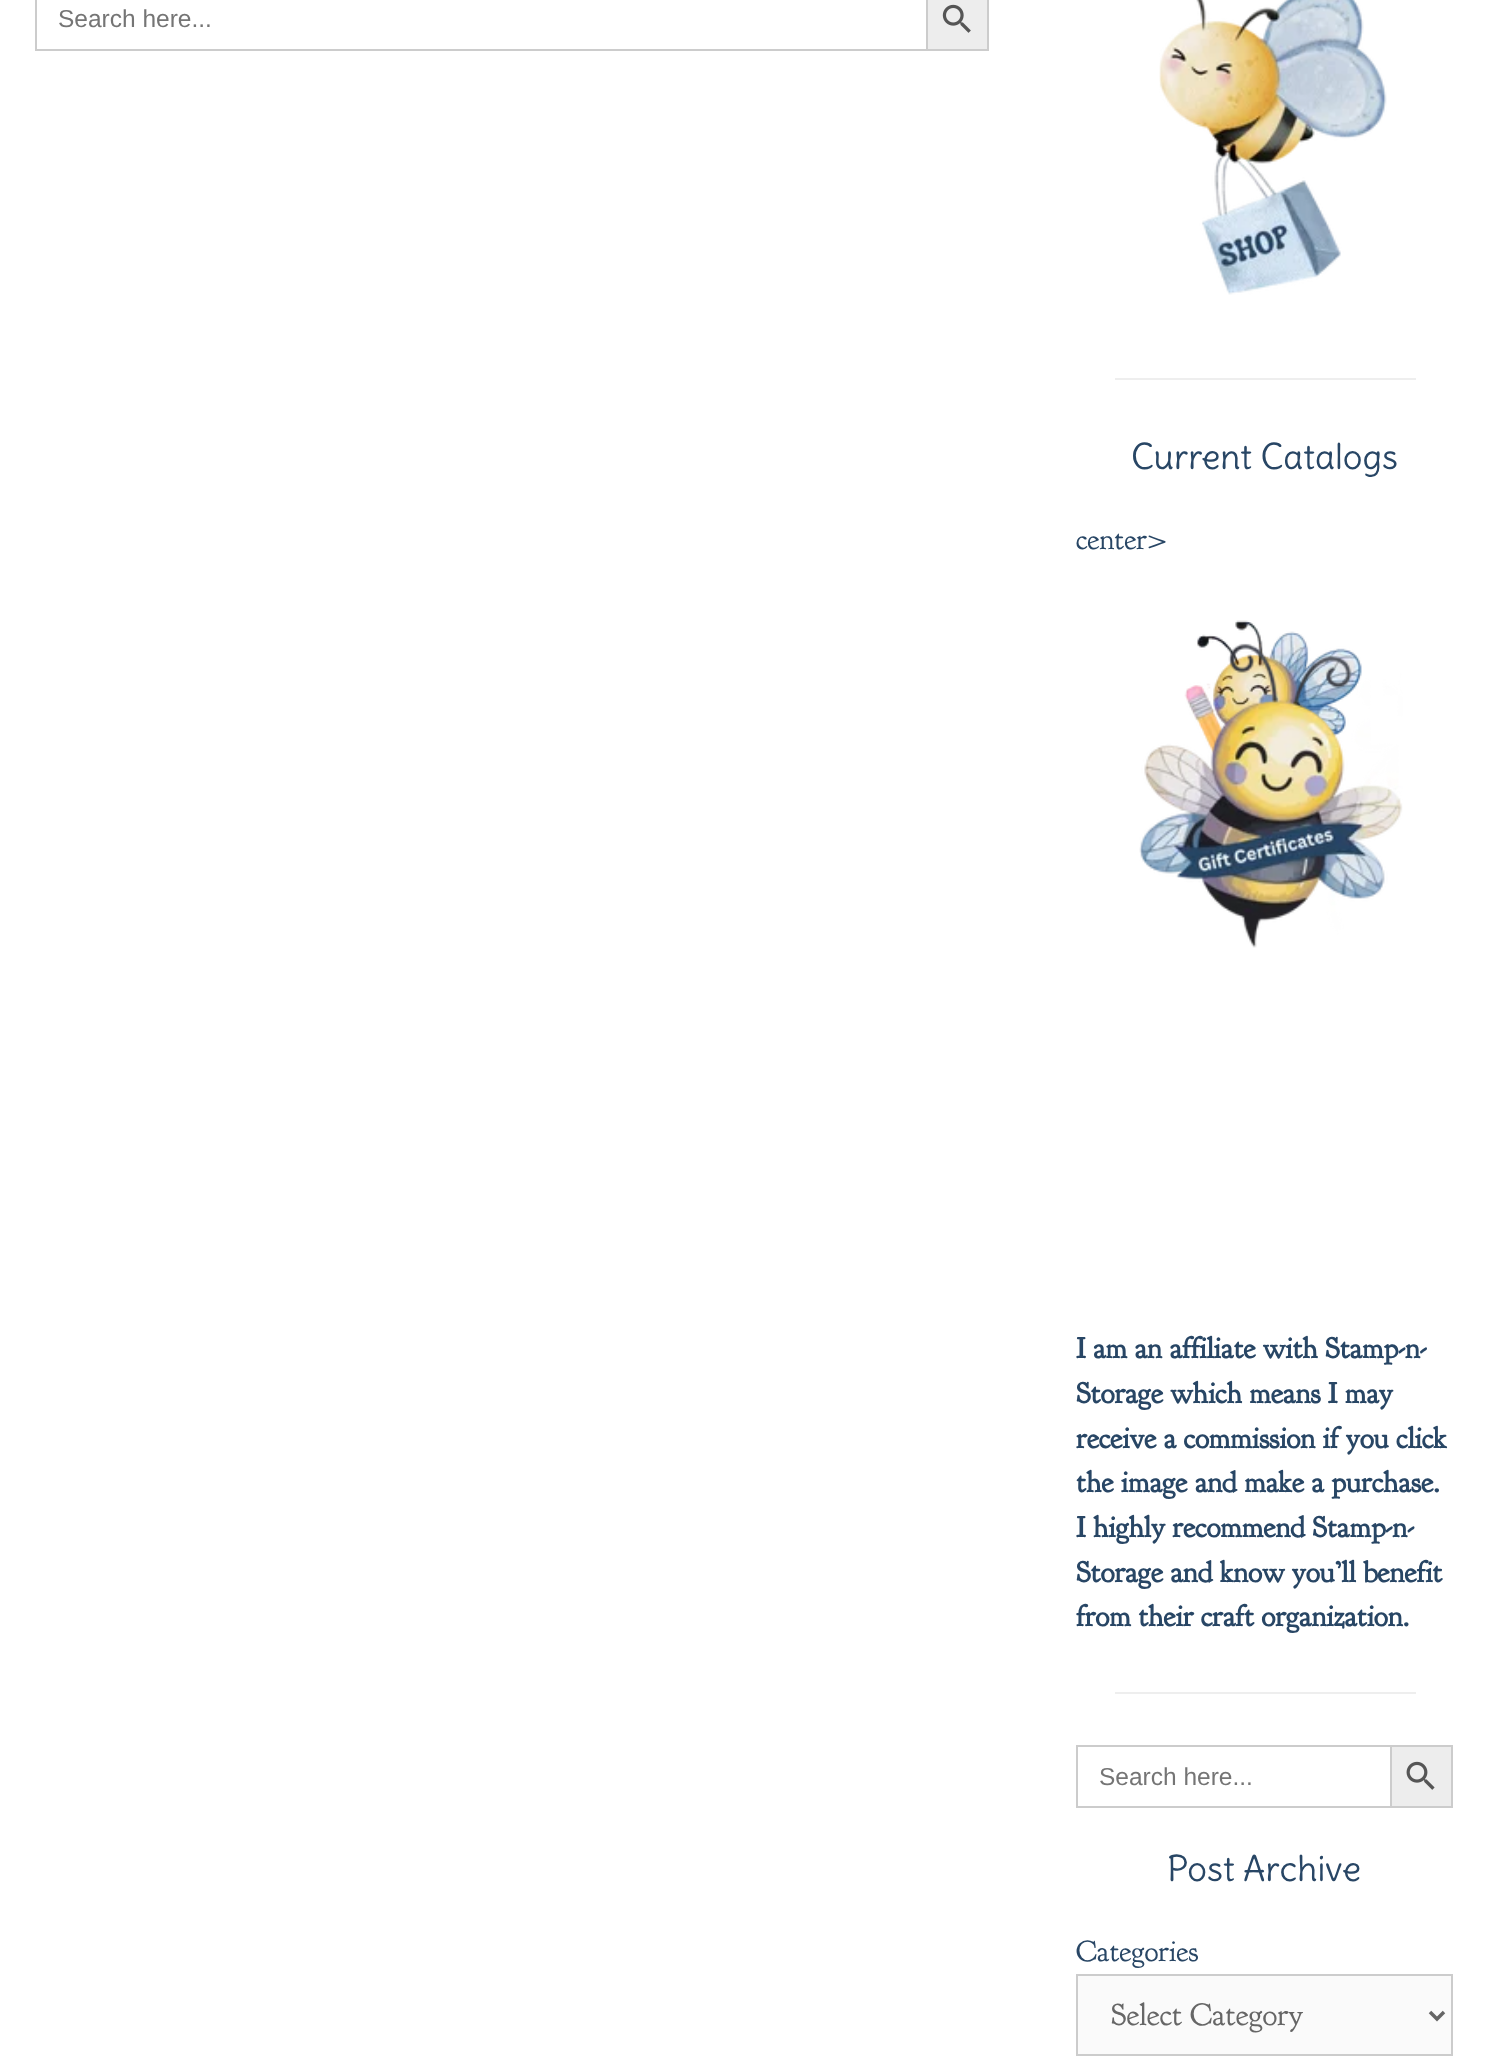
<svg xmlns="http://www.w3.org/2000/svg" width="1486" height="2070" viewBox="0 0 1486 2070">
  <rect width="100%" height="100%" fill="rgb(255,255,255)"/>
  <rect x="35" y="49" width="891" height="2" fill="rgb(204,204,204)"/>
  <rect x="35" y="0" width="2" height="51" fill="rgb(204,204,204)"/>
  <text x="58" y="27" font-family="Liberation Sans" font-size="24.5" fill="rgb(117,117,117)">Search here...</text>
  <rect x="927" y="-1" width="61" height="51" fill="rgb(237,237,237)" stroke="rgb(204,204,204)" stroke-width="2"/>
  <image x="942" y="4" width="29" height="29" href="pic1.png"/>
  <image x="1159" y="0" width="228" height="295" href="pic2.png"/>
  <rect x="1115" y="378" width="301" height="2" fill="rgb(238,238,238)"/>
  <text x="1131" y="469" font-family="Delius" font-size="35" fill="rgb(40,70,101)">Current Catalogs</text>
  <text x="1076" y="549" font-family="'Goudy Bookletter 1911'" font-size="29.75" fill="rgb(40,70,101)">center&gt;</text>
  <image x="1184" y="620" width="178" height="162" href="pic3.png"/>
  <image x="1139" y="643" width="264" height="305" href="pic4.png"/>
  <g font-family="'Goudy Bookletter 1911'" font-size="29.75" font-weight="bold" fill="rgb(40,70,101)">
    <text>
      <tspan x="1076" y="1358">I am an affiliate with Stamp-n-</tspan>
      <tspan x="1076" y="1403">Storage which means I may</tspan>
      <tspan x="1076" y="1448">receive a commission if you click</tspan>
      <tspan x="1076" y="1492">the image and make a purchase.</tspan>
      <tspan x="1076" y="1537">I highly recommend Stamp-n-</tspan>
      <tspan x="1076" y="1582">Storage and know you’ll benefit</tspan>
      <tspan x="1076" y="1626">from their craft organization.</tspan>
    </text>
  </g>
  <rect x="1115" y="1692" width="301" height="2" fill="rgb(238,238,238)"/>
  <rect x="1076" y="1745" width="314" height="2" fill="rgb(204,204,204)"/>
  <rect x="1076" y="1806" width="314" height="2" fill="rgb(204,204,204)"/>
  <rect x="1076" y="1745" width="2" height="63" fill="rgb(204,204,204)"/>
  <text x="1099" y="1785" font-family="Liberation Sans" font-size="24.5" fill="rgb(117,117,117)">Search here...</text>
  <rect x="1391" y="1746" width="61" height="61" fill="rgb(237,237,237)" stroke="rgb(204,204,204)" stroke-width="2"/>
  <image x="1406" y="1761" width="29" height="29" href="pic5.png"/>
  <text x="1167" y="1881" font-family="Delius" font-size="35" fill="rgb(40,70,101)">Post Archive</text>
  <text x="1076" y="1961" font-family="'Goudy Bookletter 1911'" font-size="29.75" fill="rgb(40,70,101)">Categories</text>
  <rect x="1077" y="1975" width="375" height="80" fill="rgb(250,250,250)" stroke="rgb(204,204,204)" stroke-width="2"/>
  <path d="M1430 2012L1437 2019L1444 2012" fill="none" stroke="rgb(102,102,102)" stroke-width="3.5"/>
  <text x="1111" y="2025" font-family="'Goudy Bookletter 1911'" font-size="31.5" fill="rgb(102,102,102)">Select Category</text>
</svg>
